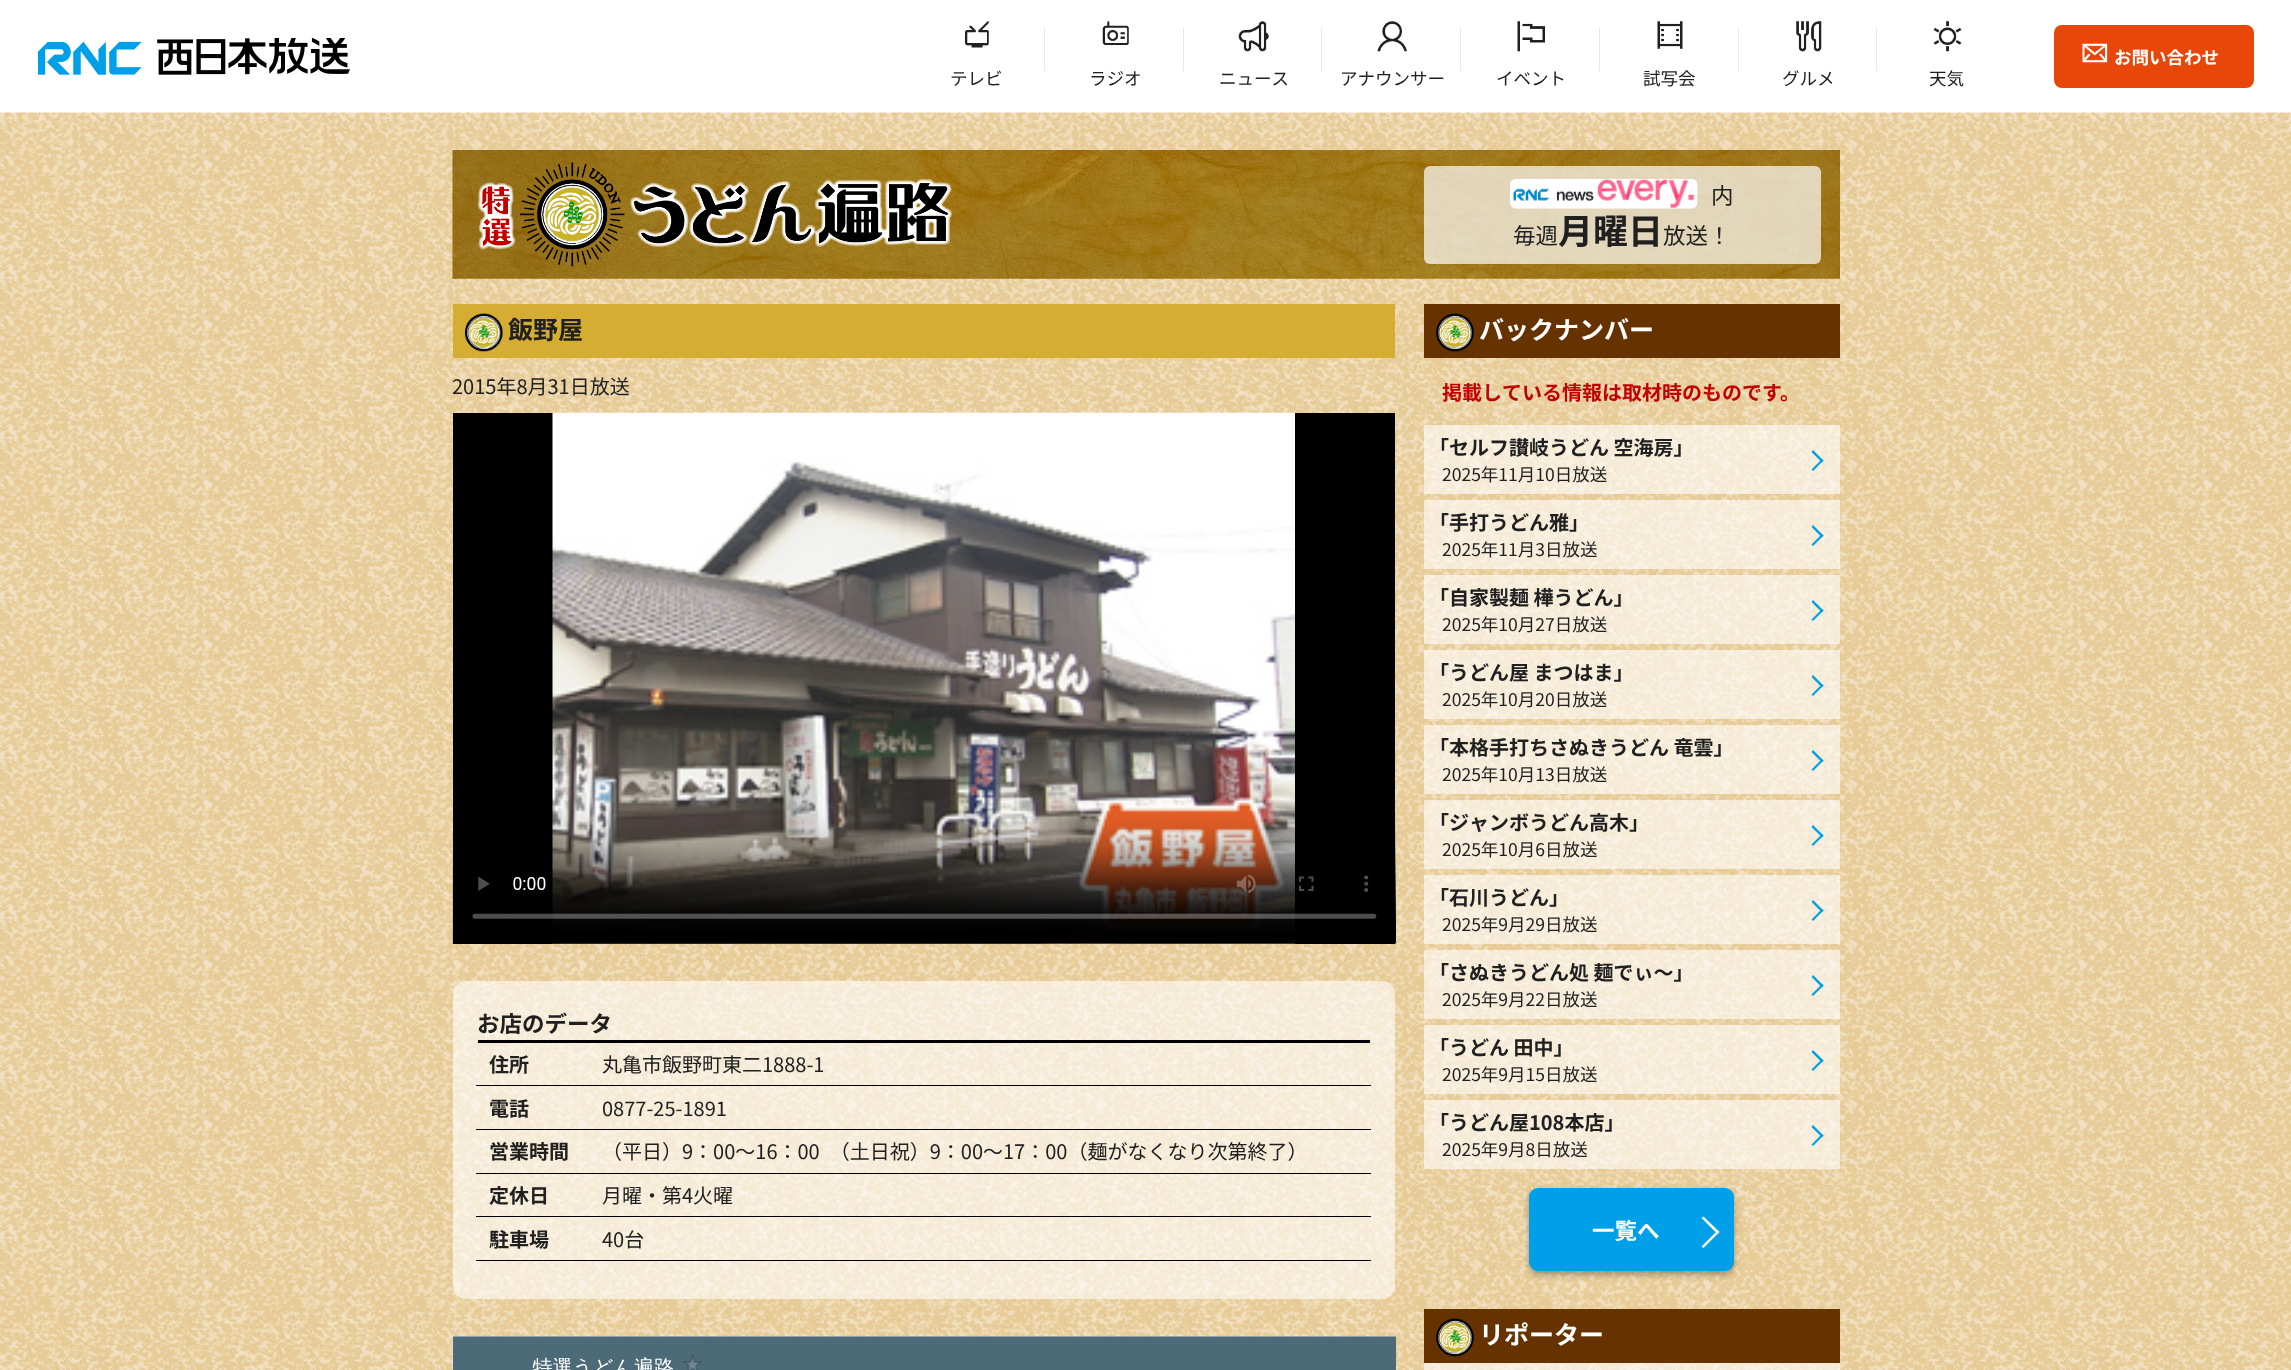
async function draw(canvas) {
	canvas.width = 2291;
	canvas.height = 1370;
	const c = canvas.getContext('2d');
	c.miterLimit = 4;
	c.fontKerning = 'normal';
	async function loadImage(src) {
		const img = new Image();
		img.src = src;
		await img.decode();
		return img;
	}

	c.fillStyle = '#fff';
	c.fillRect(0, 0, 2291, 1370);
	c.drawImage(await loadImage('img1.png'), 38, 38, 312, 37);
	c.fillStyle = '#e94709';
	c.beginPath();
	c.roundRect(2054, 25, 200, 63, 8);
	c.fill();
	c.drawImage(await loadImage('img2.png'), 2082, 43, 26, 20);
	c.font = 'bold 17.5px Noto Sans JP';
	c.fillStyle = '#fff';
	c.fillText('お問い合わせ', 2114, 64);
	c.fillStyle = '#e8e8e8';
	c.fillRect(1044, 28, 1, 43);
	c.drawImage(await loadImage('img3.png'), 965, 21, 24, 27);
	c.font = '17.5px Noto Sans JP';
	c.fillStyle = '#202020';
	c.fillText('テレビ', 950, 85);
	c.fillStyle = '#e8e8e8';
	c.fillRect(1183, 28, 1, 43);
	c.drawImage(await loadImage('img4.png'), 1102, 21, 27, 24);
	c.fillStyle = '#202020';
	c.fillText('ラジオ', 1089, 85);
	c.fillStyle = '#e8e8e8';
	c.fillRect(1321, 28, 1, 43);
	c.drawImage(await loadImage('img5.png'), 1238, 21, 31, 31);
	c.fillStyle = '#202020';
	c.fillText('ニュース', 1219, 85);
	c.fillStyle = '#e8e8e8';
	c.fillRect(1460, 28, 1, 43);
	c.drawImage(await loadImage('img6.png'), 1377, 21, 30, 31);
	c.fillStyle = '#202020';
	c.fillText('アナウンサー', 1340, 85);
	c.fillStyle = '#e8e8e8';
	c.fillRect(1599, 28, 1, 43);
	c.drawImage(await loadImage('img7.png'), 1517, 21, 28, 31);
	c.fillStyle = '#202020';
	c.fillText('イベント', 1496, 85);
	c.fillStyle = '#e8e8e8';
	c.fillRect(1738, 28, 1, 43);
	c.drawImage(await loadImage('img8.png'), 1657, 21, 26, 28);
	c.fillStyle = '#202020';
	c.fillText('試写会', 1643, 85);
	c.fillStyle = '#e8e8e8';
	c.fillRect(1876, 28, 1, 43);
	c.drawImage(await loadImage('img9.png'), 1796, 21, 26, 31);
	c.fillStyle = '#202020';
	c.fillText('グルメ', 1782, 85);
	c.drawImage(await loadImage('img10.png'), 1933, 21, 29, 31);
	c.fillText('天気', 1929, 85);
	c.drawImage(await loadImage('img11.png'), 0, 112, 2291, 1258);
	c.drawImage(await loadImage('img12.png'), 452, 150, 1388, 129);
	c.drawImage(await loadImage('img13.png'), 477, 162, 476, 105);
	c.fillStyle = '#ffffffb3';
	c.beginPath();
	c.roundRect(1424, 166, 397, 98, 6);
	c.fill();
	c.drawImage(await loadImage('img14.png'), 1510, 178, 188, 31);
	c.font = '22.5px Noto Sans JP';
	c.fillStyle = '#202020';
	c.fillText('内', 1711, 204);
	c.fillText('毎週', 1513, 244);
	c.font = 'bold 35px Noto Sans JP';
	c.fillText('月曜日', 1558, 244);
	c.font = '22.5px Noto Sans JP';
	c.fillText('放送！', 1663, 244);
	c.fillStyle = '#d5ad33';
	c.fillRect(453, 304, 942, 54);
	c.drawImage(await loadImage('img15.png'), 465, 313, 38, 39);
	c.font = 'bold 25px Noto Sans JP';
	c.fillStyle = '#202020';
	c.fillText('飯野屋', 508, 339);
	c.font = '20px Noto Sans JP';
	c.fillText('2015年8月31日放送', 452, 394);
	c.fillStyle = '#000';
	c.fillRect(453, 413, 942, 531);
	c.drawImage(await loadImage('img16.png'), 452, 412, 944, 532);
	c.fillStyle = '#ffffff99';
	c.beginPath();
	c.roundRect(453, 981, 942, 318, 13);
	c.fill();
	c.fillStyle = '#000';
	c.fillRect(478, 1040, 892, 3);
	c.font = 'bold 22.5px Noto Sans JP';
	c.fillStyle = '#202020';
	c.fillText('お店のデータ', 477, 1032);
	c.font = 'bold 20px Noto Sans JP';
	c.fillText('住所', 489, 1072);
	c.fillStyle = '#000';
	c.fillRect(476, 1085, 895, 1);
	c.font = '20px Noto Sans JP';
	c.fillStyle = '#202020';
	c.fillText('丸亀市飯野町東二1888-1', 602, 1072);
	c.font = 'bold 20px Noto Sans JP';
	c.fillText('電話', 489, 1116);
	c.fillStyle = '#000';
	c.fillRect(476, 1129, 895, 1);
	c.font = '20px Noto Sans JP';
	c.fillStyle = '#202020';
	c.fillText('0877-25-1891', 602, 1116);
	c.font = 'bold 20px Noto Sans JP';
	c.fillText('営業時間', 489, 1159);
	c.fillStyle = '#000';
	c.fillRect(476, 1173, 895, 1);
	c.font = '20px Noto Sans JP';
	c.fillStyle = '#202020';
	c.fillText('（平日）9：00～16：00　（土日祝）9：00～17：00（麺がなくなり次第終了）', 602, 1159);
	c.font = 'bold 20px Noto Sans JP';
	c.fillText('定休日', 489, 1203);
	c.fillStyle = '#000';
	c.fillRect(476, 1216, 895, 1);
	c.font = '20px Noto Sans JP';
	c.fillStyle = '#202020';
	c.fillText('月曜・第4火曜', 602, 1203);
	c.font = 'bold 20px Noto Sans JP';
	c.fillText('駐車場', 489, 1247);
	c.fillStyle = '#000';
	c.fillRect(476, 1260, 895, 1);
	c.font = '20px Noto Sans JP';
	c.fillStyle = '#202020';
	c.fillText('40台', 602, 1247);
	c.drawImage(await loadImage('img17.png'), 452, 1336, 945, 34);
	c.fillStyle = '#630';
	c.fillRect(1424, 304, 416, 54);
	c.drawImage(await loadImage('img18.png'), 1436, 313, 38, 39);
	c.font = 'bold 25px Noto Sans JP';
	c.fillStyle = '#fff';
	c.fillText('バックナンバー', 1479, 339);
	c.font = 'bold 20px Noto Sans JP';
	c.fillStyle = '#c20000';
	c.fillText('掲載している情報は取材時のものです。', 1442, 400);
	c.fillStyle = '#ffffff99';
	c.fillRect(1424, 425, 416, 69);
	c.fillStyle = '#202020';
	c.fillText('「セルフ讃岐うどん 空海房」', 1429, 455);
	c.fillStyle = '#00a0e9';
	c.beginPath();
	c.moveTo(1813, 450);
	c.lineTo(1823.5, 460.5);
	c.lineTo(1822, 462.5);
	c.lineTo(1811.5, 452);
	c.closePath();
	c.fill();
	c.beginPath();
	c.moveTo(1822, 459);
	c.lineTo(1823.5, 460.5);
	c.lineTo(1813, 471);
	c.lineTo(1811.5, 469.5);
	c.closePath();
	c.fill();
	c.font = '17.5px Noto Sans JP';
	c.fillStyle = '#202020';
	c.fillText('2025年11月10日放送', 1442, 481);
	c.fillStyle = '#ffffff99';
	c.fillRect(1424, 500, 416, 69);
	c.font = 'bold 20px Noto Sans JP';
	c.fillStyle = '#202020';
	c.fillText('「手打うどん雅」', 1429, 530);
	c.fillStyle = '#00a0e9';
	c.beginPath();
	c.moveTo(1813, 525);
	c.lineTo(1823.5, 535.5);
	c.lineTo(1822, 537.5);
	c.lineTo(1811.5, 527);
	c.closePath();
	c.fill();
	c.beginPath();
	c.moveTo(1822, 534);
	c.lineTo(1823.5, 535.5);
	c.lineTo(1813, 546);
	c.lineTo(1811.5, 544.5);
	c.closePath();
	c.fill();
	c.font = '17.5px Noto Sans JP';
	c.fillStyle = '#202020';
	c.fillText('2025年11月3日放送', 1442, 556);
	c.fillStyle = '#ffffff99';
	c.fillRect(1424, 575, 416, 69);
	c.font = 'bold 20px Noto Sans JP';
	c.fillStyle = '#202020';
	c.fillText('「自家製麺 樺うどん」', 1429, 605);
	c.fillStyle = '#00a0e9';
	c.beginPath();
	c.moveTo(1813, 600);
	c.lineTo(1823.5, 610.5);
	c.lineTo(1822, 612.5);
	c.lineTo(1811.5, 602);
	c.closePath();
	c.fill();
	c.beginPath();
	c.moveTo(1822, 609);
	c.lineTo(1823.5, 610.5);
	c.lineTo(1813, 621);
	c.lineTo(1811.5, 619.5);
	c.closePath();
	c.fill();
	c.font = '17.5px Noto Sans JP';
	c.fillStyle = '#202020';
	c.fillText('2025年10月27日放送', 1442, 631);
	c.fillStyle = '#ffffff99';
	c.fillRect(1424, 650, 416, 69);
	c.font = 'bold 20px Noto Sans JP';
	c.fillStyle = '#202020';
	c.fillText('「うどん屋 まつはま」', 1429, 680);
	c.fillStyle = '#00a0e9';
	c.beginPath();
	c.moveTo(1813, 675);
	c.lineTo(1823.5, 685.5);
	c.lineTo(1822, 687.5);
	c.lineTo(1811.5, 677);
	c.closePath();
	c.fill();
	c.beginPath();
	c.moveTo(1822, 684);
	c.lineTo(1823.5, 685.5);
	c.lineTo(1813, 696);
	c.lineTo(1811.5, 694.5);
	c.closePath();
	c.fill();
	c.font = '17.5px Noto Sans JP';
	c.fillStyle = '#202020';
	c.fillText('2025年10月20日放送', 1442, 706);
	c.fillStyle = '#ffffff99';
	c.fillRect(1424, 725, 416, 69);
	c.font = 'bold 20px Noto Sans JP';
	c.fillStyle = '#202020';
	c.fillText('「本格手打ちさぬきうどん 竜雲」', 1429, 755);
	c.fillStyle = '#00a0e9';
	c.beginPath();
	c.moveTo(1813, 750);
	c.lineTo(1823.5, 760.5);
	c.lineTo(1822, 762.5);
	c.lineTo(1811.5, 752);
	c.closePath();
	c.fill();
	c.beginPath();
	c.moveTo(1822, 759);
	c.lineTo(1823.5, 760.5);
	c.lineTo(1813, 771);
	c.lineTo(1811.5, 769.5);
	c.closePath();
	c.fill();
	c.font = '17.5px Noto Sans JP';
	c.fillStyle = '#202020';
	c.fillText('2025年10月13日放送', 1442, 781);
	c.fillStyle = '#ffffff99';
	c.fillRect(1424, 800, 416, 69);
	c.font = 'bold 20px Noto Sans JP';
	c.fillStyle = '#202020';
	c.fillText('「ジャンボうどん高木」', 1429, 830);
	c.fillStyle = '#00a0e9';
	c.beginPath();
	c.moveTo(1813, 825);
	c.lineTo(1823.5, 835.5);
	c.lineTo(1822, 837.5);
	c.lineTo(1811.5, 827);
	c.closePath();
	c.fill();
	c.beginPath();
	c.moveTo(1822, 834);
	c.lineTo(1823.5, 835.5);
	c.lineTo(1813, 846);
	c.lineTo(1811.5, 844.5);
	c.closePath();
	c.fill();
	c.font = '17.5px Noto Sans JP';
	c.fillStyle = '#202020';
	c.fillText('2025年10月6日放送', 1442, 856);
	c.fillStyle = '#ffffff99';
	c.fillRect(1424, 875, 416, 69);
	c.font = 'bold 20px Noto Sans JP';
	c.fillStyle = '#202020';
	c.fillText('「石川うどん」', 1429, 905);
	c.fillStyle = '#00a0e9';
	c.beginPath();
	c.moveTo(1813, 900);
	c.lineTo(1823.5, 910.5);
	c.lineTo(1822, 912.5);
	c.lineTo(1811.5, 902);
	c.closePath();
	c.fill();
	c.beginPath();
	c.moveTo(1822, 909);
	c.lineTo(1823.5, 910.5);
	c.lineTo(1813, 921);
	c.lineTo(1811.5, 919.5);
	c.closePath();
	c.fill();
	c.font = '17.5px Noto Sans JP';
	c.fillStyle = '#202020';
	c.fillText('2025年9月29日放送', 1442, 931);
	c.fillStyle = '#ffffff99';
	c.fillRect(1424, 950, 416, 69);
	c.font = 'bold 20px Noto Sans JP';
	c.fillStyle = '#202020';
	c.fillText('「さぬきうどん処 麺でぃ〜」', 1429, 980);
	c.fillStyle = '#00a0e9';
	c.beginPath();
	c.moveTo(1813, 975);
	c.lineTo(1823.5, 985.5);
	c.lineTo(1822, 987.5);
	c.lineTo(1811.5, 977);
	c.closePath();
	c.fill();
	c.beginPath();
	c.moveTo(1822, 984);
	c.lineTo(1823.5, 985.5);
	c.lineTo(1813, 996);
	c.lineTo(1811.5, 994.5);
	c.closePath();
	c.fill();
	c.font = '17.5px Noto Sans JP';
	c.fillStyle = '#202020';
	c.fillText('2025年9月22日放送', 1442, 1006);
	c.fillStyle = '#ffffff99';
	c.fillRect(1424, 1025, 416, 69);
	c.font = 'bold 20px Noto Sans JP';
	c.fillStyle = '#202020';
	c.fillText('「うどん 田中」', 1429, 1055);
	c.fillStyle = '#00a0e9';
	c.beginPath();
	c.moveTo(1813, 1050);
	c.lineTo(1823.5, 1060.5);
	c.lineTo(1822, 1062.5);
	c.lineTo(1811.5, 1052);
	c.closePath();
	c.fill();
	c.beginPath();
	c.moveTo(1822, 1059);
	c.lineTo(1823.5, 1060.5);
	c.lineTo(1813, 1071);
	c.lineTo(1811.5, 1069.5);
	c.closePath();
	c.fill();
	c.font = '17.5px Noto Sans JP';
	c.fillStyle = '#202020';
	c.fillText('2025年9月15日放送', 1442, 1081);
	c.fillStyle = '#ffffff99';
	c.fillRect(1424, 1100, 416, 69);
	c.font = 'bold 20px Noto Sans JP';
	c.fillStyle = '#202020';
	c.fillText('「うどん屋108本店」', 1429, 1130);
	c.fillStyle = '#00a0e9';
	c.beginPath();
	c.moveTo(1813, 1125);
	c.lineTo(1823.5, 1135.5);
	c.lineTo(1822, 1137.5);
	c.lineTo(1811.5, 1127);
	c.closePath();
	c.fill();
	c.beginPath();
	c.moveTo(1822, 1134);
	c.lineTo(1823.5, 1135.5);
	c.lineTo(1813, 1146);
	c.lineTo(1811.5, 1144.5);
	c.closePath();
	c.fill();
	c.font = '17.5px Noto Sans JP';
	c.fillStyle = '#202020';
	c.fillText('2025年9月8日放送', 1442, 1156);
	c.fillStyle = '#0000004d';
	c.filter = 'blur(3px)';
	c.beginPath();
	c.roundRect(1529, 1191, 205, 84, 9);
	c.fill();
	c.filter = 'none';
	c.fillStyle = '#00a0e9';
	c.beginPath();
	c.roundRect(1529, 1188, 205, 83, 9);
	c.fill();
	c.font = 'bold 22.5px Noto Sans JP';
	c.fillStyle = '#fff';
	c.fillText('一覧へ', 1592, 1239);
	c.beginPath();
	c.moveTo(1703.5, 1216.5);
	c.lineTo(1719.5, 1232);
	c.lineTo(1717.5, 1234);
	c.lineTo(1701.5, 1218);
	c.closePath();
	c.fill();
	c.beginPath();
	c.moveTo(1717.5, 1230.5);
	c.lineTo(1719.5, 1232);
	c.lineTo(1703.5, 1248);
	c.lineTo(1701.5, 1246.5);
	c.closePath();
	c.fill();
	c.fillStyle = '#ffffff99';
	c.fillRect(1424, 1363, 416, 7);
	c.fillStyle = '#630';
	c.fillRect(1424, 1309, 416, 54);
	c.drawImage(await loadImage('img18.png'), 1436, 1318, 38, 39);
	c.font = 'bold 25px Noto Sans JP';
	c.fillStyle = '#fff';
	c.fillText('リポーター', 1479, 1344);
}

draw(document.querySelector('canvas'));
